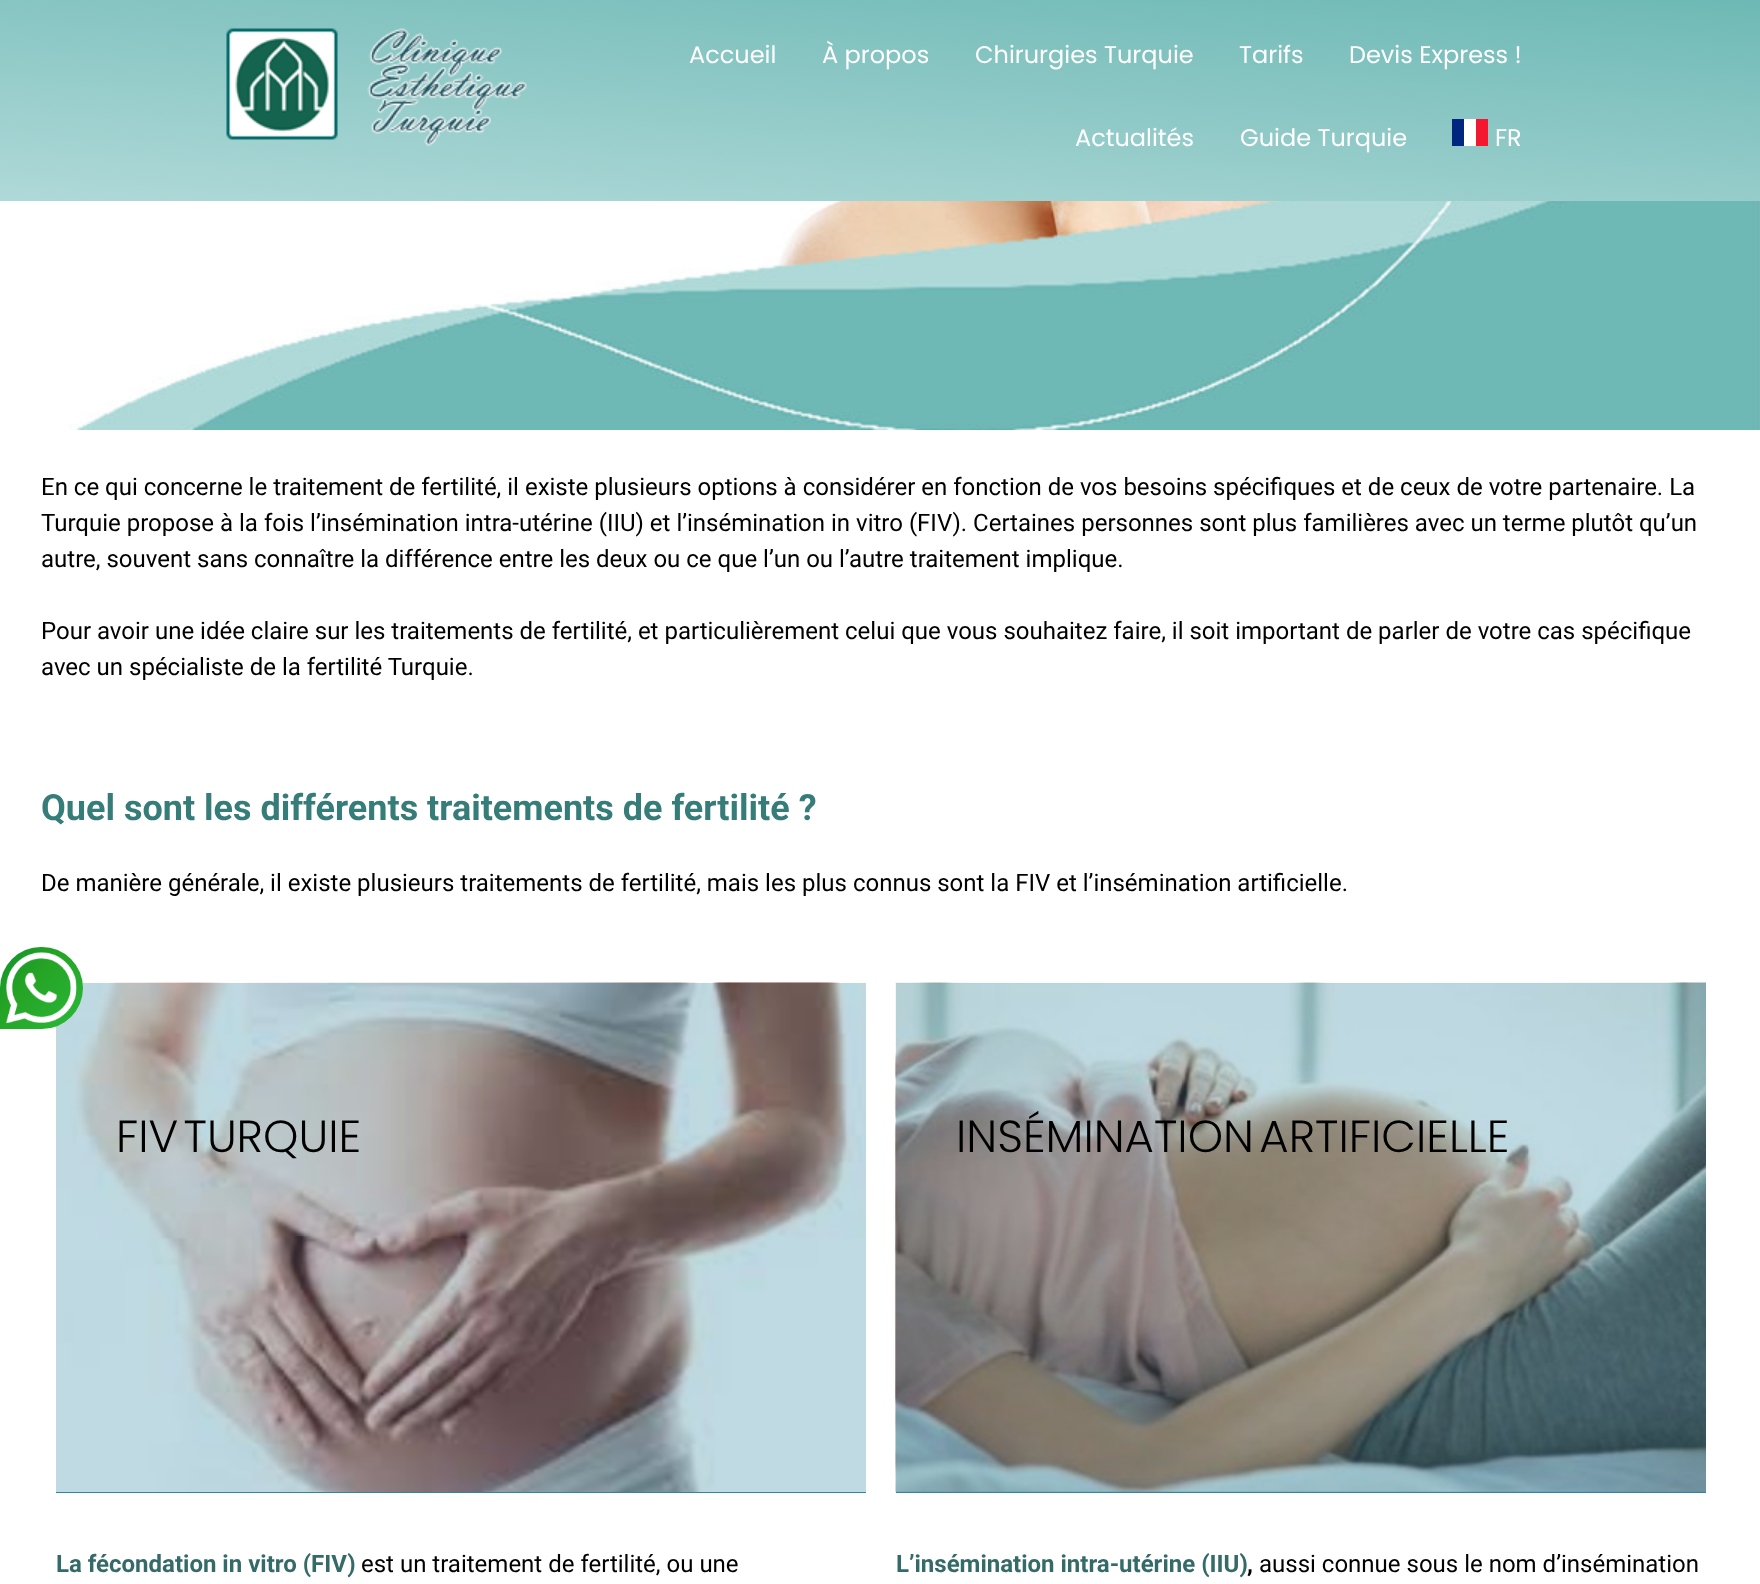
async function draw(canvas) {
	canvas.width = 1760;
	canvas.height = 1584;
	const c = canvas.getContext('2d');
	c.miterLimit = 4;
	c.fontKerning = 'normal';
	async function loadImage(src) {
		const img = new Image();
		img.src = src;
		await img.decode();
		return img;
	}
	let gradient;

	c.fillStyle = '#fff';
	c.fillRect(0, 0, 1760, 1584);
	gradient = c.createLinearGradient(869, 262, 892, -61);
	gradient.addColorStop(0, '#afd9d8');
	gradient.addColorStop(1, '#6eb9b5');
	c.fillStyle = gradient;
	c.fillRect(0, 0, 1760, 201);
	c.drawImage(await loadImage('img1.png'), 226, 28, 301, 118);
	c.font = '24px Poppins';
	c.fillStyle = '#fff';
	for (const [text, x, y] of [
		['Accueil', 689, 63],
		['À propos', 822, 63],
		['Chirurgies Turquie', 975, 63],
		['Tarifs', 1239, 63],
		['Devis Express !', 1349, 63],
		['Actualités', 1075, 146],
		['Guide Turquie', 1240, 146],
	]) {
		c.fillText(text, x, y);
	}
	for (const [x, y, w, h, color] of [
		[1452, 119, 12, 27, '#00267f'],
		[1464, 119, 12, 27, '#fff'],
		[1476, 119, 12, 27, '#f31830'],
	]) {
		c.fillStyle = color;
		c.fillRect(x, y, w, h);
	}
	c.fillStyle = '#fff';
	c.fillText('FR', 1495, 146);
	c.drawImage(await loadImage('img2.png'), 69, 201, 1691, 229);
	c.font = '24px Roboto';
	c.fillStyle = '#000';
	for (const [text, x, y] of [
		['En ce qui concerne le traitement de fertilité, il existe plusieurs options à considérer en fonction de vos besoins spécifiques et de ceux de votre partenaire. La', 41, 495],
		['Turquie propose à la fois l’insémination intra-utérine (IIU) et l’insémination in vitro (FIV). Certaines personnes sont plus familières avec un terme plutôt qu’un', 41, 531],
		['autre, souvent sans connaître la différence entre les deux ou ce que l’un ou l’autre traitement implique.', 41, 567],
		['Pour avoir une idée claire sur les traitements de fertilité, et particulièrement celui que vous souhaitez faire, il soit important de parler de votre cas spécifique', 41, 639],
		['avec un spécialiste de la fertilité Turquie.', 41, 675],
	]) {
		c.fillText(text, x, y);
	}
	c.font = 'bold 36px Roboto';
	c.fillStyle = '#367d79';
	c.fillText('Quel sont les différents traitements de fertilité ?', 41, 820);
	c.font = '24px Roboto';
	c.fillStyle = '#000';
	c.fillText('De manière générale, il existe plusieurs traitements de fertilité, mais les plus connus sont la FIV et l’insémination artificielle.', 41, 891);
	c.fillStyle = '#3085a3';
	c.fillRect(56, 983, 810, 510);
	c.drawImage(await loadImage('img3.png'), 56, 982, 810, 510);
	c.wordSpacing = '-7px';
	c.font = '300 45px Poppins';
	c.fillStyle = '#000';
	c.fillText('FIV TURQUIE', 116, 1152);
	c.fillStyle = '#3085a3';
	c.fillRect(896, 983, 810, 510);
	c.drawImage(await loadImage('img4.png'), 895, 982, 811, 510);
	c.fillStyle = '#000';
	c.fillText('INSÉMINATION ARTIFICIELLE', 956, 1152);
	c.wordSpacing = '0px';
	c.font = 'bold 24px Roboto';
	c.fillStyle = '#346a68';
	c.fillText('La fécondation in vitro (FIV)', 56, 1572);
	c.font = '24px Roboto';
	c.fillStyle = '#000';
	c.fillText('est un traitement de fertilité, ou une', 361, 1572);
	c.font = 'bold 24px Roboto';
	c.fillStyle = '#346a68';
	c.fillText('L’insémination intra-utérine (IIU)', 896, 1572);
	c.fillStyle = '#000';
	c.fillText(',', 1247, 1572);
	c.font = '24px Roboto';
	c.fillText('aussi connue sous le nom d’insémination', 1259, 1572);
	gradient = c.createLinearGradient(0, 947, 83, 1029);
	gradient.addColorStop(0, '#0f912c');
	gradient.addColorStop(0.37, '#25a325');
	gradient.addColorStop(1, '#2ab939');
	c.fillStyle = gradient;
	c.beginPath();
	c.roundRect(0, 947, 83, 82, [41, 41, 41, 0]);
	c.fill();
	c.drawImage(await loadImage('img6.png'), 24, 972, 33, 31);
	c.drawImage(await loadImage('img5.png'), 6, 952, 71, 71);
}

draw(document.querySelector('canvas'));
